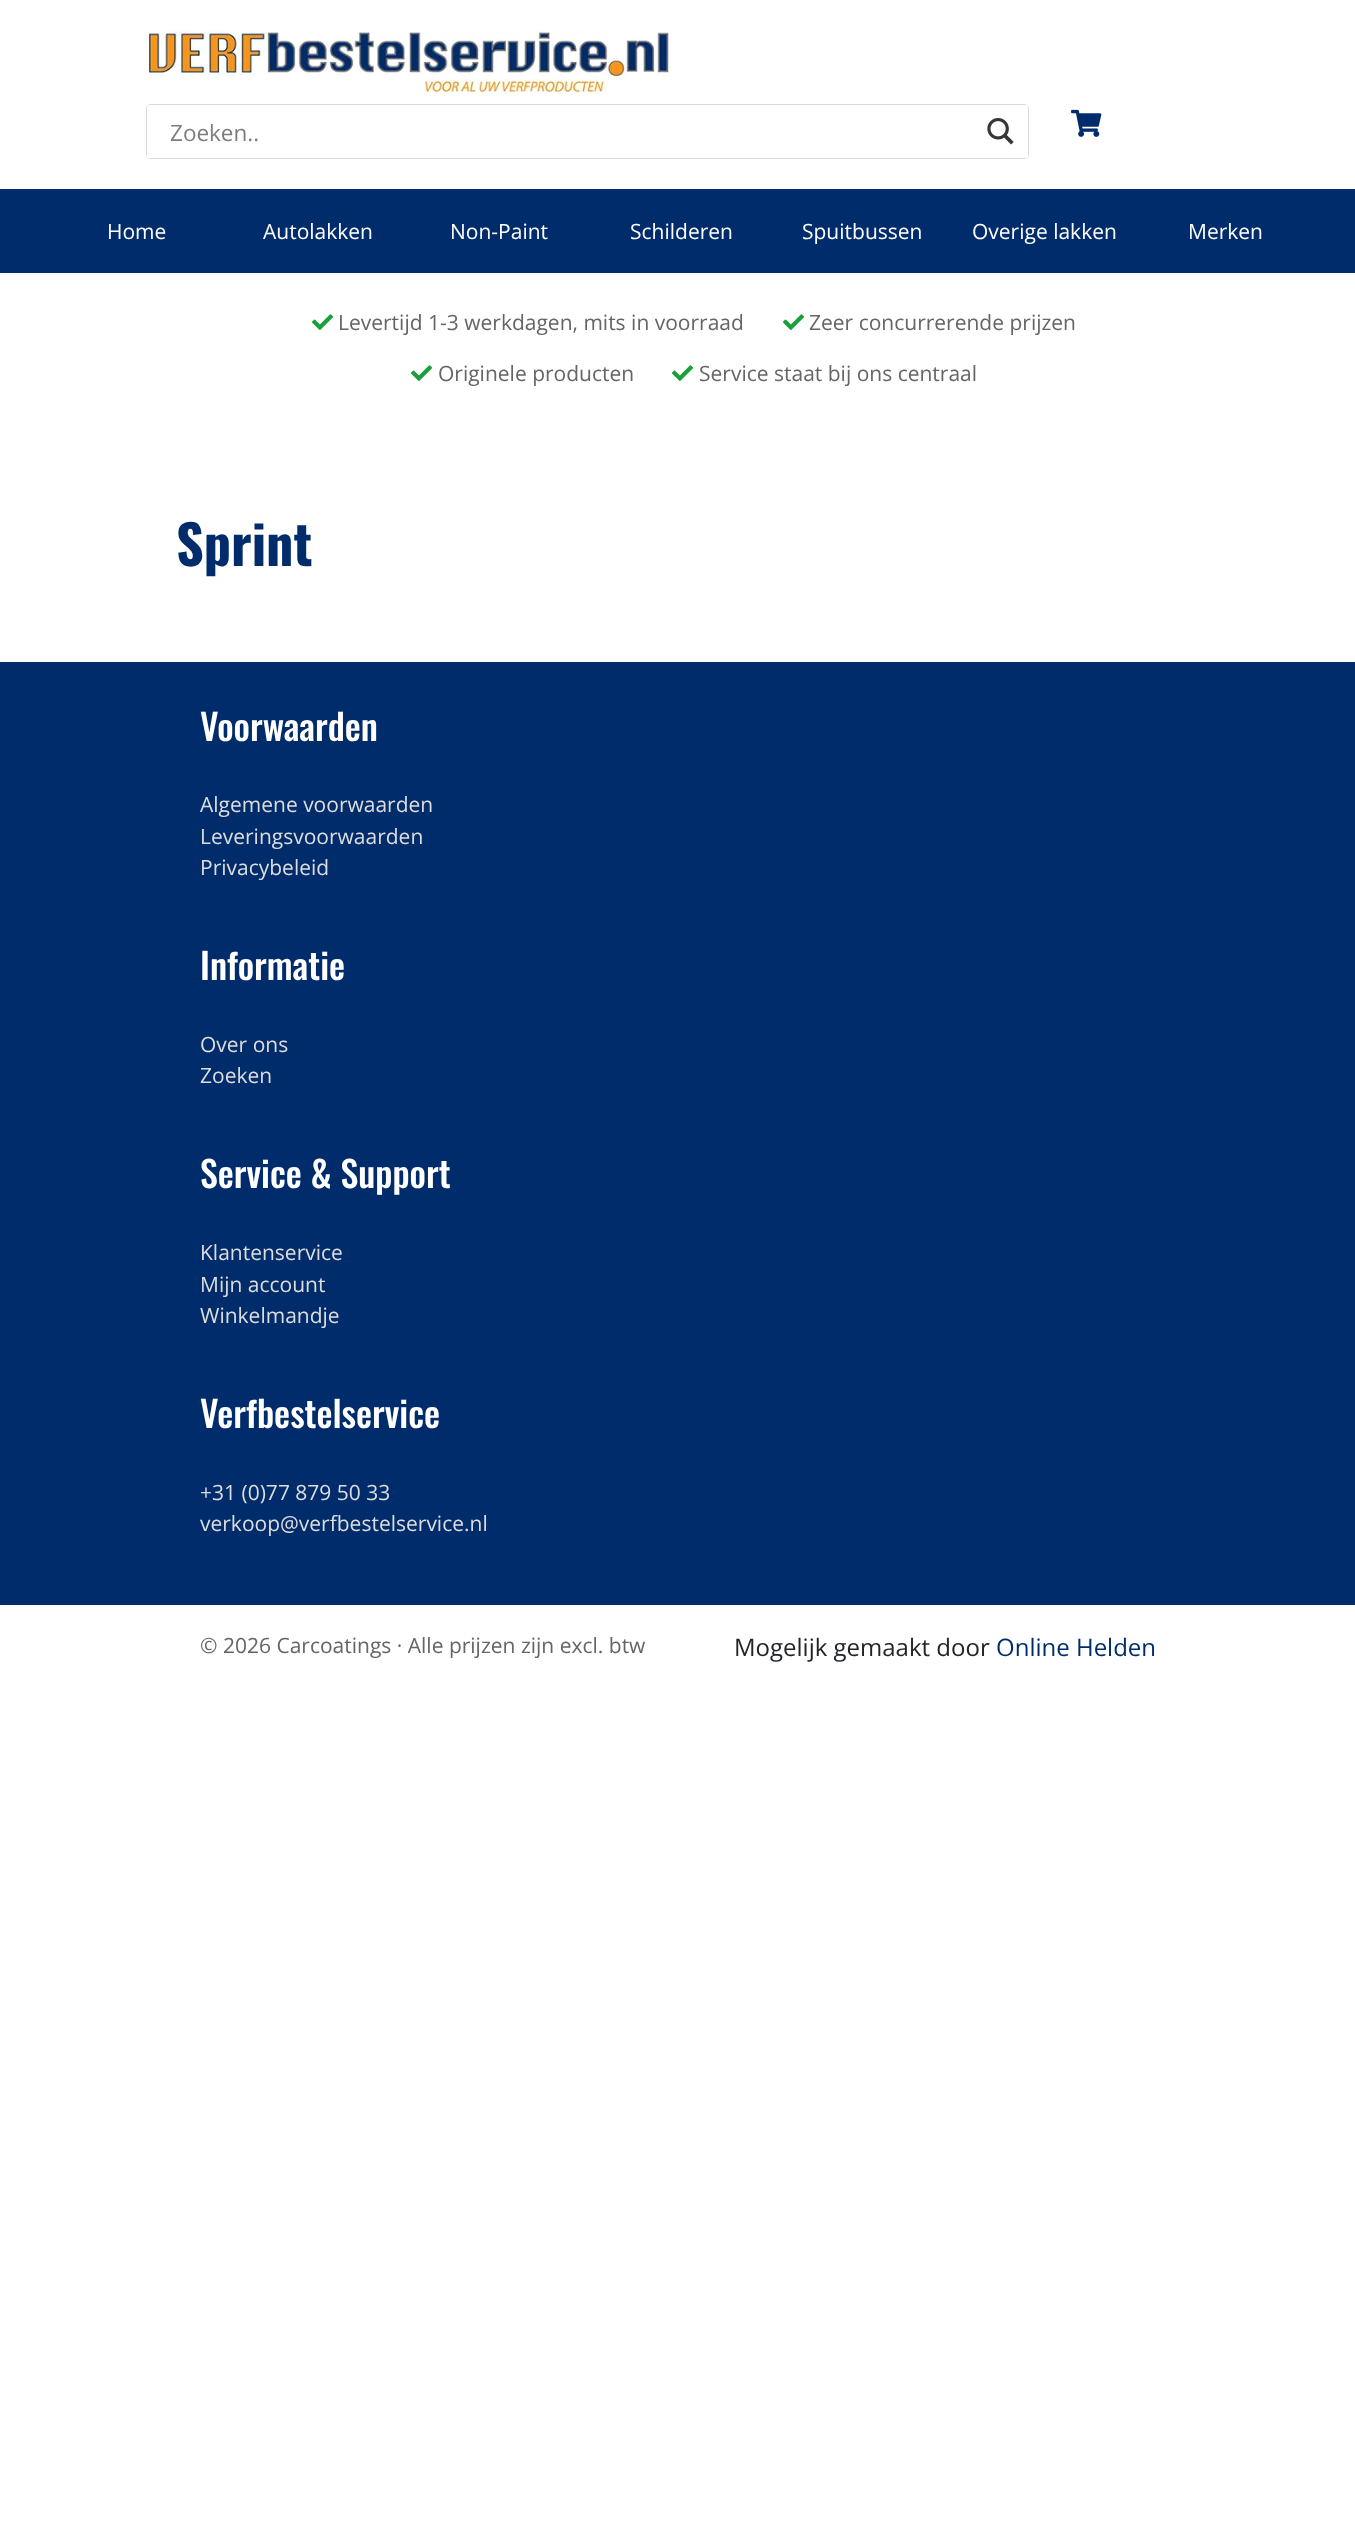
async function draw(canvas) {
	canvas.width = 1355;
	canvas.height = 2524;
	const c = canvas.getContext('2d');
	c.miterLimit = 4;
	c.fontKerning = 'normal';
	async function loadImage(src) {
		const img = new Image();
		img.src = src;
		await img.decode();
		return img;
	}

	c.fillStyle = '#fff';
	c.fillRect(0, 0, 1355, 2524);
	c.drawImage(await loadImage('img1.png'), 145, 30, 526, 64);
	c.beginPath();
	c.roundRect(147, 105, 881, 53, 4);
	c.strokeStyle = '#dadada';
	c.lineWidth = 2;
	c.stroke();
	c.beginPath();
	c.roundRect(147, 105, 881, 53, 3);
	c.fill();
	c.font = '22.5px Open Sans';
	c.fillStyle = '#7d7d7d';
	c.fillText('Zoeken..', 170, 141);
	c.save();
	c.beginPath();
	c.rect(975, 105, 53, 53);
	c.clip();
	c.fillStyle = '#ffffffa3';
	c.beginPath();
	c.moveTo(974, 106);
	c.lineTo(974, 158);
	c.lineTo(826, 158);
	c.lineTo(826, 105);
	c.lineTo(1025, 105);
	c.bezierCurveTo(1027, 105, 1028, 106, 1028, 108);
	c.lineTo(1028, 155);
	c.bezierCurveTo(1028, 156, 1027, 157, 1026, 158);
	c.lineTo(1026, 106);
	c.closePath();
	c.fill();
	c.restore();
	c.drawImage(await loadImage('img2.png'), 987, 118, 27, 27);
	c.drawImage(await loadImage('img3.png'), 1071, 109, 31, 28);
	c.fillStyle = '#002c6b';
	c.fillRect(0, 189, 1355, 84);
	c.font = '21px Open Sans';
	c.fillStyle = '#fff';
	for (const [text, x, y] of [
		['Home', 107, 239],
		['Autolakken', 263, 239],
		['Non-Paint', 450, 239],
		['Schilderen', 630, 239],
		['Spuitbussen', 802, 239],
		['Overige lakken', 972, 239],
		['Merken', 1188, 239],
	]) {
		c.fillText(text, x, y);
	}
	c.drawImage(await loadImage('img4.png'), 312, 314, 21, 16);
	c.fillStyle = '#656564';
	c.fillText('Levertijd 1-3 werkdagen, mits in voorraad', 338, 330);
	c.drawImage(await loadImage('img4.png'), 783, 314, 21, 16);
	c.fillText('Zeer concurrerende prijzen', 809, 330);
	c.drawImage(await loadImage('img4.png'), 411, 365, 21, 16);
	c.fillText('Originele producten', 438, 381);
	c.drawImage(await loadImage('img4.png'), 672, 365, 21, 16);
	c.fillText('Service staat bij ons centraal', 699, 381);
	c.font = 'bold 54px Oswald';
	c.fillStyle = '#002c6b';
	c.fillText('Sprint', 176, 566);
	c.fillRect(0, 662, 1355, 943);
	c.font = '500 36px Oswald';
	c.fillStyle = '#fff';
	c.fillText('Voorwaarden', 200, 741);
	c.font = '21px Open Sans';
	c.fillStyle = '#ddd';
	for (const [text, x, y] of [
		['Algemene voorwaarden', 200, 812],
		['Leveringsvoorwaarden', 200, 844],
		['Privacybeleid', 200, 875],
	]) {
		c.fillText(text, x, y);
	}
	c.font = '500 36px Oswald';
	c.fillStyle = '#fff';
	c.fillText('Informatie', 200, 980);
	c.font = '21px Open Sans';
	c.fillStyle = '#ddd';
	c.fillText('Over ons', 200, 1052);
	c.fillText('Zoeken', 200, 1083);
	c.font = '500 36px Oswald';
	c.fillStyle = '#fff';
	c.fillText('Service & Support', 200, 1188);
	c.font = '21px Open Sans';
	c.fillStyle = '#ddd';
	for (const [text, x, y] of [
		['Klantenservice', 200, 1260],
		['Mijn account', 200, 1292],
		['Winkelmandje', 200, 1323],
	]) {
		c.fillText(text, x, y);
	}
	c.font = '500 36px Oswald';
	c.fillStyle = '#fff';
	c.fillText('Verfbestelservice', 200, 1428);
	c.font = '21px Open Sans';
	c.fillStyle = '#ddd';
	c.fillText('+31 (0)77 879 50 33', 200, 1500);
	c.fillText('verkoop@verfbestelservice.nl', 200, 1531);
	c.fillStyle = '#656564';
	c.fillText('© 2026 Carcoatings · Alle prijzen zijn excl. btw', 200, 1653);
	c.font = '24px Open Sans';
	c.fillStyle = '#212529';
	c.fillText('Mogelijk gemaakt door', 734, 1656);
	c.fillStyle = '#002c6b';
	c.fillText('Online Helden', 996, 1656);
}

draw(document.querySelector('canvas'));
